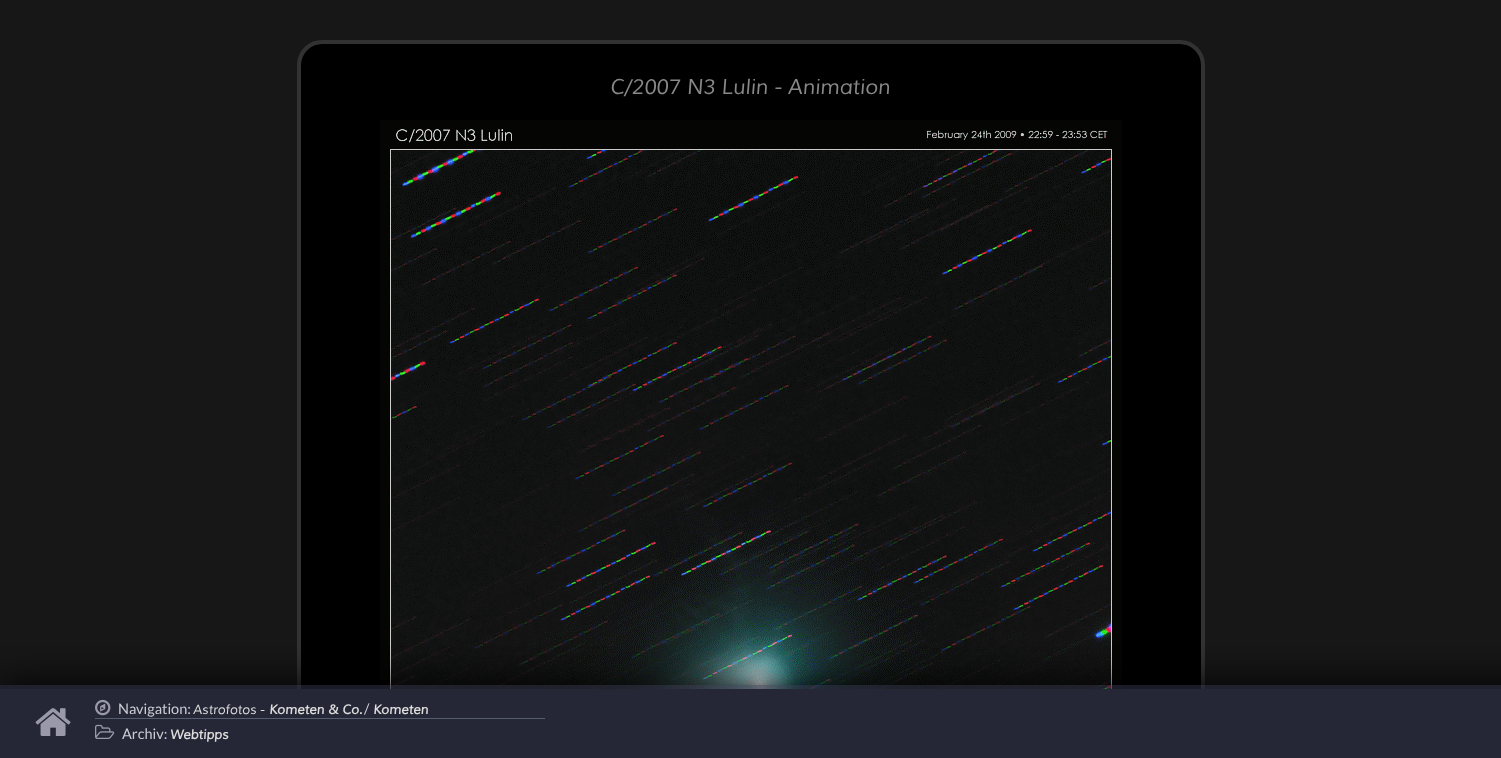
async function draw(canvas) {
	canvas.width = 1501;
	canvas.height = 758;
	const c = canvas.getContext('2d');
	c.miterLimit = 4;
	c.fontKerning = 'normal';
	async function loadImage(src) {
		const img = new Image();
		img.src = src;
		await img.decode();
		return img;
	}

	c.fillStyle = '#171717';
	c.fillRect(0, 0, 1501, 758);
	c.fillStyle = '#000';
	c.beginPath();
	c.roundRect(301, 44, 900, 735, 21);
	c.fill();
	c.beginPath();
	c.roundRect(299, 42, 904, 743, 23);
	c.strokeStyle = '#323232';
	c.lineWidth = 4;
	c.stroke();
	c.font = 'italic 21px Muli';
	c.fillStyle = '#888';
	c.fillText('C/2007 N3 Lulin - Animation', 610, 94);
	c.drawImage(await loadImage('img1.png'), 380, 120, 742, 569);
	c.save();
	c.beginPath();
	c.rect(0, 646, 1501, 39);
	c.clip();
	c.fillStyle = '#000';
	c.filter = 'blur(19px)';
	c.beginPath();
	c.rect(0, 685, 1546, 73);
	c.fill();
	c.filter = 'none';
	c.restore();
	c.fillStyle = '#252736';
	c.fillRect(0, 689, 1501, 69);
	c.fillStyle = '#252736b3';
	c.fillRect(0, 685, 1501, 4);
	c.drawImage(await loadImage('img2.png'), 35, 708, 36, 28);
	c.fillStyle = '#545d6e';
	c.fillRect(95, 718, 450, 1);
	c.drawImage(await loadImage('img3.png'), 95, 699, 16, 17);
	c.font = '14.5px Lato';
	c.fillStyle = '#ccccd4';
	c.fillText('Navigation:', 118, 714);
	c.font = 'italic 13px Muli';
	c.fillStyle = '#ddd';
	c.fillText('Astrofotos -', 193, 714);
	c.font = 'italic bold 13px Muli';
	c.fillText('Kometen & Co.', 269, 714);
	c.font = '14.5px Lato';
	c.fillStyle = '#ccccd4';
	c.fillText('/', 364, 714);
	c.font = 'italic bold 13px Muli';
	c.fillStyle = '#ddd';
	c.fillText('Kometen', 373, 714);
	c.drawImage(await loadImage('img4.png'), 95, 724, 20, 15);
	c.font = '14.5px Lato';
	c.fillStyle = '#ccccd4';
	c.fillText('Archiv:', 122, 739);
	c.font = 'italic bold 13px Muli';
	c.fillStyle = '#ddd';
	c.fillText('Webtipps', 170, 739);
}

draw(document.querySelector('canvas'));
